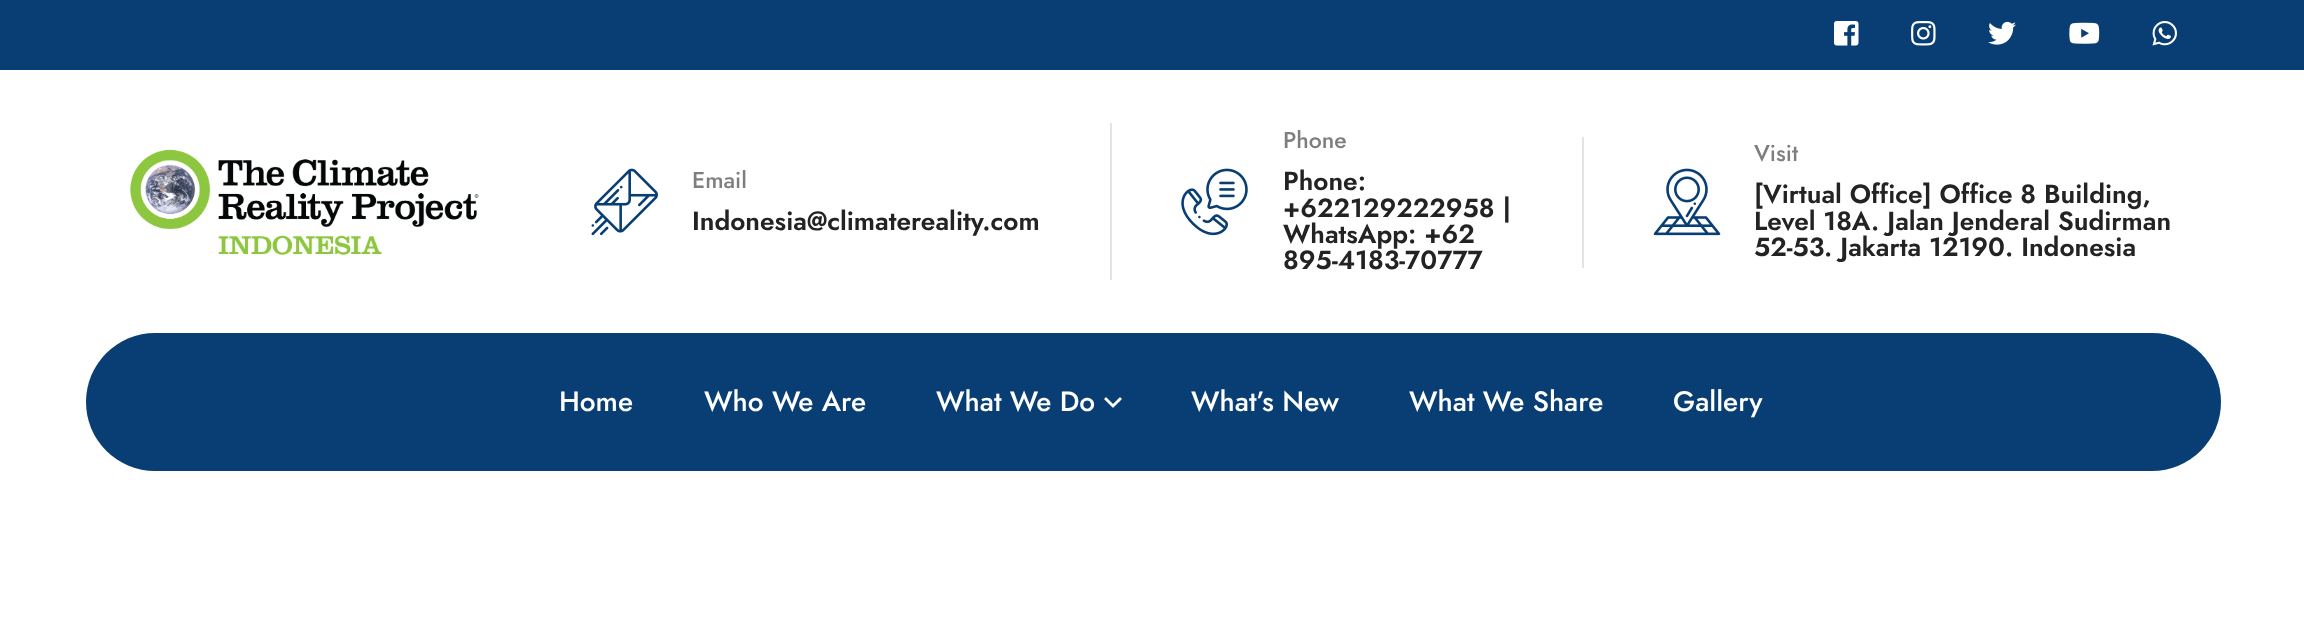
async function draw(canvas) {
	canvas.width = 2304;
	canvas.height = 633;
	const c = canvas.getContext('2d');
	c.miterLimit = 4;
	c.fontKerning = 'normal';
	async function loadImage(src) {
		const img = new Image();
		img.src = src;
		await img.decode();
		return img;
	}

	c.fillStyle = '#fff';
	c.fillRect(0, 0, 2304, 633);
	c.fillStyle = '#083e73';
	c.fillRect(0, 0, 2304, 70);
	c.drawImage(await loadImage('img1.png'), 1834, 21, 25, 25);
	c.drawImage(await loadImage('img2.png'), 1911, 21, 25, 25);
	c.drawImage(await loadImage('img3.png'), 1988, 21, 28, 24);
	c.drawImage(await loadImage('img4.png'), 2069, 22, 31, 22);
	c.drawImage(await loadImage('img5.png'), 2152, 21, 25, 25);
	c.drawImage(await loadImage('img6.png'), 130, 149, 349, 106);
	c.drawImage(await loadImage('img7.png'), 591, 168, 67, 68);
	c.font = '500 23px Jost';
	c.fillStyle = '#7e7e7e';
	c.fillText('Email', 692, 188);
	c.font = '600 26.25px Jost';
	c.fillStyle = '#242323';
	c.fillText('Indonesia@climatereality.com', 692, 230);
	c.fillStyle = '#e4e4e4';
	c.fillRect(1110, 123, 2, 157);
	c.drawImage(await loadImage('img8.png'), 1181, 168, 67, 68);
	c.font = '500 23px Jost';
	c.fillStyle = '#7e7e7e';
	c.fillText('Phone', 1283, 148);
	c.font = '600 26.25px Jost';
	c.fillStyle = '#242323';
	for (const [text, x, y] of [
		['Phone:', 1283, 190],
		['+622129222958 |', 1283, 217],
		['WhatsApp: +62', 1283, 243],
		['895-4183-70777', 1283, 269],
	]) {
		c.fillText(text, x, y);
	}
	c.fillStyle = '#e4e4e4';
	c.fillRect(1582, 137, 2, 131);
	c.drawImage(await loadImage('img9.png'), 1653, 168, 68, 68);
	c.font = '500 23px Jost';
	c.fillStyle = '#7e7e7e';
	c.fillText('Visit', 1754, 161);
	c.font = '600 26.25px Jost';
	c.fillStyle = '#242323';
	for (const [text, x, y] of [
		['[Virtual Office] Office 8 Building,', 1754, 203],
		['Level 18A. Jalan Jenderal Sudirman', 1754, 230],
		['52-53. Jakarta 12190. Indonesia', 1754, 256],
	]) {
		c.fillText(text, x, y);
	}
	c.fillStyle = '#083e73';
	c.beginPath();
	c.roundRect(86, 333, 2135, 138, 69);
	c.fill();
	c.font = '500 28px Jost';
	c.fillStyle = '#fff';
	for (const [text, x, y] of [
		['Home', 559, 411],
		['Who We Are', 704, 411],
		['What We Do', 936, 411],
	]) {
		c.fillText(text, x, y);
	}
	c.drawImage(await loadImage('img10.png'), 1104, 397, 18, 11);
	for (const [text, x, y] of [
		['What’s New', 1191, 411],
		['What We Share', 1409, 411],
		['Gallery', 1673, 411],
	]) {
		c.fillText(text, x, y);
	}
}

draw(document.querySelector('canvas'));
